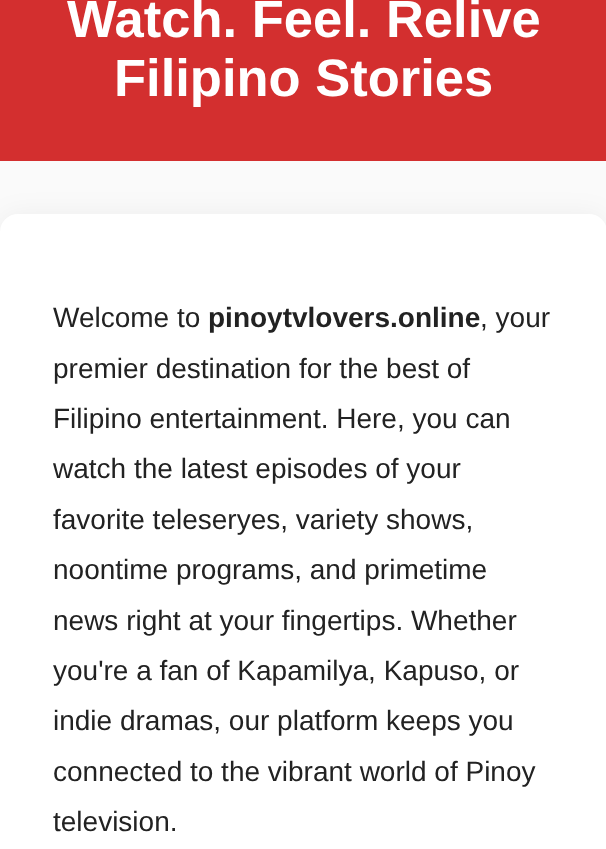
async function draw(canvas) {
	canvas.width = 606;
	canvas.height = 849;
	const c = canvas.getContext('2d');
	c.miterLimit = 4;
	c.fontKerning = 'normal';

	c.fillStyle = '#fafafa';
	c.fillRect(0, 0, 606, 849);
	c.fillStyle = '#d32f2f';
	c.fillRect(0, 0, 606, 161);
	c.font = 'bold 52.5px Liberation Sans';
	c.fillStyle = '#fff';
	c.fillText('Watch. Feel. Relive', 67, 37);
	c.fillText('Filipino Stories', 114, 96);
	c.fillStyle = '#0000000d';
	c.filter = 'blur(13px)';
	c.beginPath();
	c.roundRect(0, 214, 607, 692, 18);
	c.fill();
	c.filter = 'none';
	c.fillStyle = '#fff';
	c.beginPath();
	c.roundRect(0, 214, 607, 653, 18);
	c.fill();
	c.font = '28px Liberation Sans';
	c.fillStyle = '#222';
	c.fillText('Welcome to', 53, 327);
	c.font = 'bold 28px Liberation Sans';
	c.fillText('pinoytvlovers.online', 208, 327);
	c.font = '28px Liberation Sans';
	for (const [text, x, y] of [
		[', your', 480, 327],
		['premier destination for the best of', 53, 378],
		['Filipino entertainment. Here, you can', 53, 428],
		['watch the latest episodes of your', 53, 478],
		['favorite teleseryes, variety shows,', 53, 529],
		['noontime programs, and primetime', 53, 579],
		['news right at your fingertips. Whether', 53, 630],
		['you\'re a fan of Kapamilya, Kapuso, or', 53, 680],
		['indie dramas, our platform keeps you', 53, 730],
		['connected to the vibrant world of Pinoy', 53, 781],
		['television.', 53, 831],
	]) {
		c.fillText(text, x, y);
	}
}

draw(document.querySelector('canvas'));
